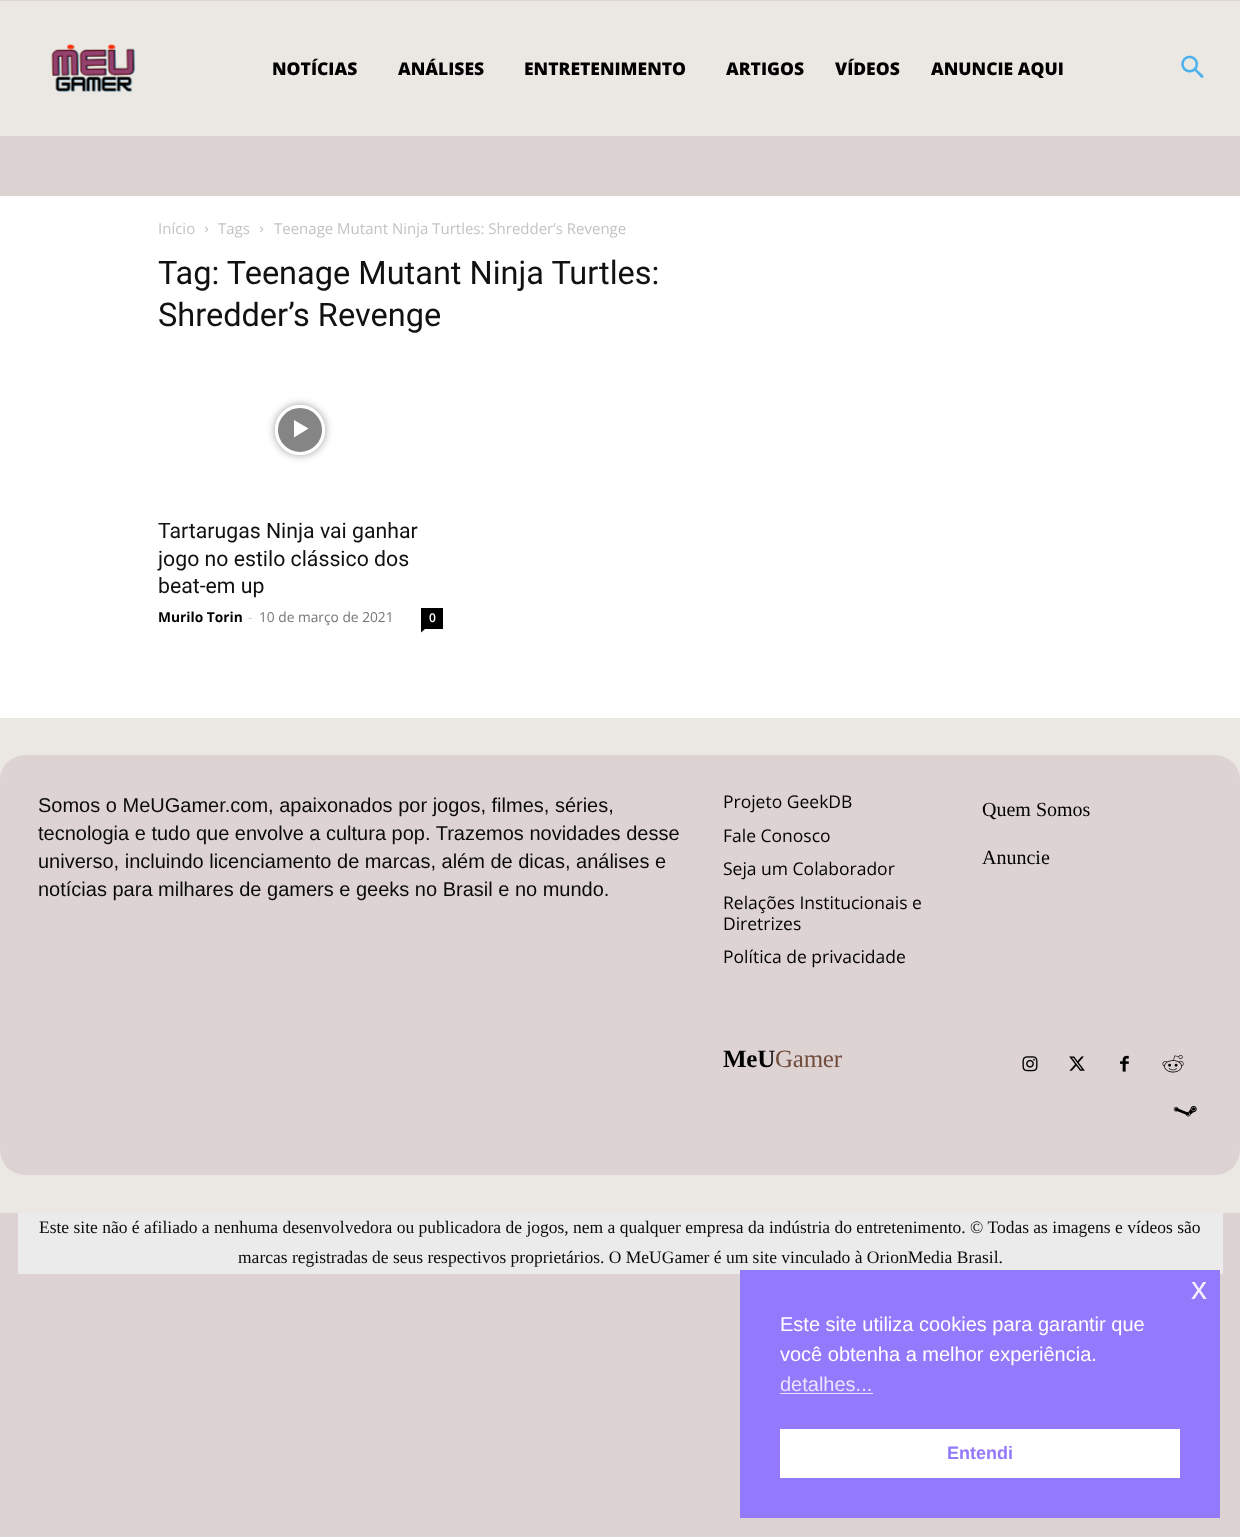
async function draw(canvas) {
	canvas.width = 1240;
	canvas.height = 1537;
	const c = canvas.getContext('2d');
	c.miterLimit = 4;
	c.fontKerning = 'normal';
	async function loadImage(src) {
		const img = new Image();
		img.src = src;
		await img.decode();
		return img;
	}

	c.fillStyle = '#ddd3d2';
	c.fillRect(0, 0, 1240, 1537);
	c.fillStyle = '#ebe7e2';
	c.fillRect(0, 1, 1240, 135);
	c.drawImage(await loadImage('img1.png'), 51, 44, 84, 48);
	c.font = '800 17.5px Open Sans';
	c.fillStyle = '#000';
	for (const [text, x, y] of [
		['NOTÍCIAS', 272, 75],
		['ANÁLISES', 398, 75],
		['ENTRETENIMENTO', 524, 75],
		['ARTIGOS', 726, 75],
		['VÍDEOS', 835, 75],
		['ANUNCIE AQUI', 931, 75],
	]) {
		c.fillText(text, x, y);
	}
	c.drawImage(await loadImage('img2.png'), 1181, 55, 23, 23);
	c.fillStyle = '#fff';
	c.fillRect(0, 196, 1240, 522);
	c.font = '15px Open Sans';
	c.fillStyle = '#c3c3c3';
	c.fillText('Início', 158, 234);
	c.drawImage(await loadImage('img3.png'), 205, 226, 4, 7);
	c.fillText('Tags', 218, 234);
	c.drawImage(await loadImage('img3.png'), 260, 226, 4, 7);
	c.fillText('Teenage Mutant Ninja Turtles: Shredder’s Revenge', 274, 234);
	c.font = '32.5px Roboto';
	c.fillStyle = '#111';
	c.fillText('Tag: Teenage Mutant Ninja Turtles:', 158, 284);
	c.fillText('Shredder’s Revenge', 158, 326);
	c.save();
	c.beginPath();
	c.moveTo(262, 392);
	c.lineTo(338, 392);
	c.lineTo(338, 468);
	c.lineTo(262, 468);
	c.closePath();
	c.moveTo(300, 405);
	c.bezierCurveTo(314, 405, 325, 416, 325, 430);
	c.bezierCurveTo(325, 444, 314, 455, 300, 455);
	c.bezierCurveTo(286, 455, 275, 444, 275, 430);
	c.bezierCurveTo(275, 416, 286, 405, 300, 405);
	c.closePath();
	c.clip('evenodd');
	c.fillStyle = '#00000066';
	c.filter = 'blur(4px)';
	c.beginPath();
	c.roundRect(275, 405, 50, 50, 25);
	c.fill();
	c.filter = 'none';
	c.restore();
	c.fillStyle = '#0000007a';
	c.beginPath();
	c.arc(300, 430, 23.5, 0, 2 * Math.PI);
	c.fill();
	c.strokeStyle = '#fff';
	c.lineWidth = 3;
	c.stroke();
	c.fillStyle = '#fff';
	c.beginPath();
	c.moveTo(294, 420);
	c.lineTo(294, 437.5);
	c.lineTo(308.5, 428.5);
	c.closePath();
	c.fill();
	c.font = '21.25px Roboto';
	c.fillStyle = '#111';
	for (const [text, x, y] of [
		['Tartarugas Ninja vai ganhar', 158, 538],
		['jogo no estilo clássico dos', 158, 566],
		['beat-em up', 158, 593],
	]) {
		c.fillText(text, x, y);
	}
	c.font = 'bold 13.75px Open Sans';
	c.fillStyle = '#000';
	c.fillText('Murilo Torin', 158, 622);
	c.font = '13.75px Open Sans';
	c.fillStyle = '#ccc';
	c.fillText('-', 248, 622);
	c.fillStyle = '#767676';
	c.fillText('10 de março de 2021', 259, 622);
	c.fillStyle = '#000';
	c.fillRect(421, 608, 22, 21);
	c.font = '600 12px Open Sans';
	c.fillStyle = '#fff';
	c.fillText('0', 429, 622);
	c.fillStyle = '#000';
	c.beginPath();
	c.moveTo(421, 629);
	c.lineTo(425, 629);
	c.lineTo(421, 632.5);
	c.closePath();
	c.fill();
	c.fillStyle = '#ebe7e2';
	c.fillRect(0, 718, 1240, 495);
	c.fillStyle = '#ddd3d2';
	c.beginPath();
	c.roundRect(0, 755, 724, 420, [25, 0, 0, 25]);
	c.fill();
	c.font = '20px Liberation Sans';
	c.fillStyle = '#0a0a0a';
	for (const [text, x, y] of [
		['Somos o MeUGamer.com, apaixonados por jogos, filmes, séries,', 38, 812],
		['tecnologia e tudo que envolve a cultura pop. Trazemos novidades desse', 38, 840],
		['universo, incluindo licenciamento de marcas, além de dicas, análises e', 38, 868],
		['notícias para milhares de gamers e geeks no Brasil e no mundo.', 38, 896],
	]) {
		c.fillText(text, x, y);
	}
	c.fillStyle = '#ddd3d2';
	c.beginPath();
	c.roundRect(724, 755, 516, 420, [0, 25, 25, 0]);
	c.fill();
	c.font = '17.5px Open Sans';
	c.fillStyle = '#000';
	for (const [text, x, y] of [
		['Projeto GeekDB', 723, 808],
		['Fale Conosco', 723, 842],
		['Seja um Colaborador', 723, 875],
		['Relações Institucionais e', 723, 909],
		['Diretrizes', 723, 930],
		['Política de privacidade', 723, 963],
	]) {
		c.fillText(text, x, y);
	}
	c.font = '20px Liberation Serif';
	c.fillText('Quem Somos', 982, 816);
	c.fillText('Anuncie', 982, 864);
	c.letterSpacing = '-0.25px';
	c.font = 'bold 25px Liberation Serif';
	c.fillText('MeU', 723, 1067);
	c.font = '25px Liberation Serif';
	c.fillStyle = '#704c3c';
	c.fillText('Gamer', 775, 1067);
	c.drawImage(await loadImage('img4.png'), 1022, 1056, 16, 16);
	c.drawImage(await loadImage('img5.png'), 1069, 1056, 16, 15);
	c.drawImage(await loadImage('img6.png'), 1120, 1055, 9, 17);
	c.drawImage(await loadImage('img7.png'), 1162, 1055, 22, 18);
	c.drawImage(await loadImage('img8.png'), 1173, 1106, 24, 11);
	c.fillStyle = '#ebebeb';
	c.fillRect(18, 1213, 1205, 61);
	c.letterSpacing = '0px';
	c.font = '17.5px Liberation Serif';
	c.fillStyle = '#0a0a0a';
	c.fillText('Este site não é afiliado a nenhuma desenvolvedora ou publicadora de jogos, nem a qualquer empresa da indústria do entretenimento. © Todas as imagens e vídeos são', 39, 1233);
	c.fillText('marcas registradas de seus respectivos proprietários. O MeUGamer é um site vinculado à OrionMedia Brasil.', 238, 1263);
	c.fillStyle = '#937afc';
	c.fillRect(740, 1270, 480, 248);
	c.font = '32px Liberation Sans';
	c.fillStyle = '#f4f2ff';
	c.fillText('x', 1191, 1299);
	c.font = '20px Liberation Sans';
	c.fillStyle = '#fff';
	c.fillText('Este site utiliza cookies para garantir que', 780, 1331);
	c.fillText('você obtenha a melhor experiência.', 780, 1361);
	c.fillStyle = '#e9e4fe';
	c.fillText('detalhes...', 780, 1391);
	c.fillRect(780, 1393, 93, 1);
	c.fillStyle = '#fff';
	c.fillRect(780, 1429, 400, 49);
	c.font = 'bold 18px Liberation Sans';
	c.fillStyle = '#937afc';
	c.fillText('Entendi', 947, 1459);
}

draw(document.querySelector('canvas'));
